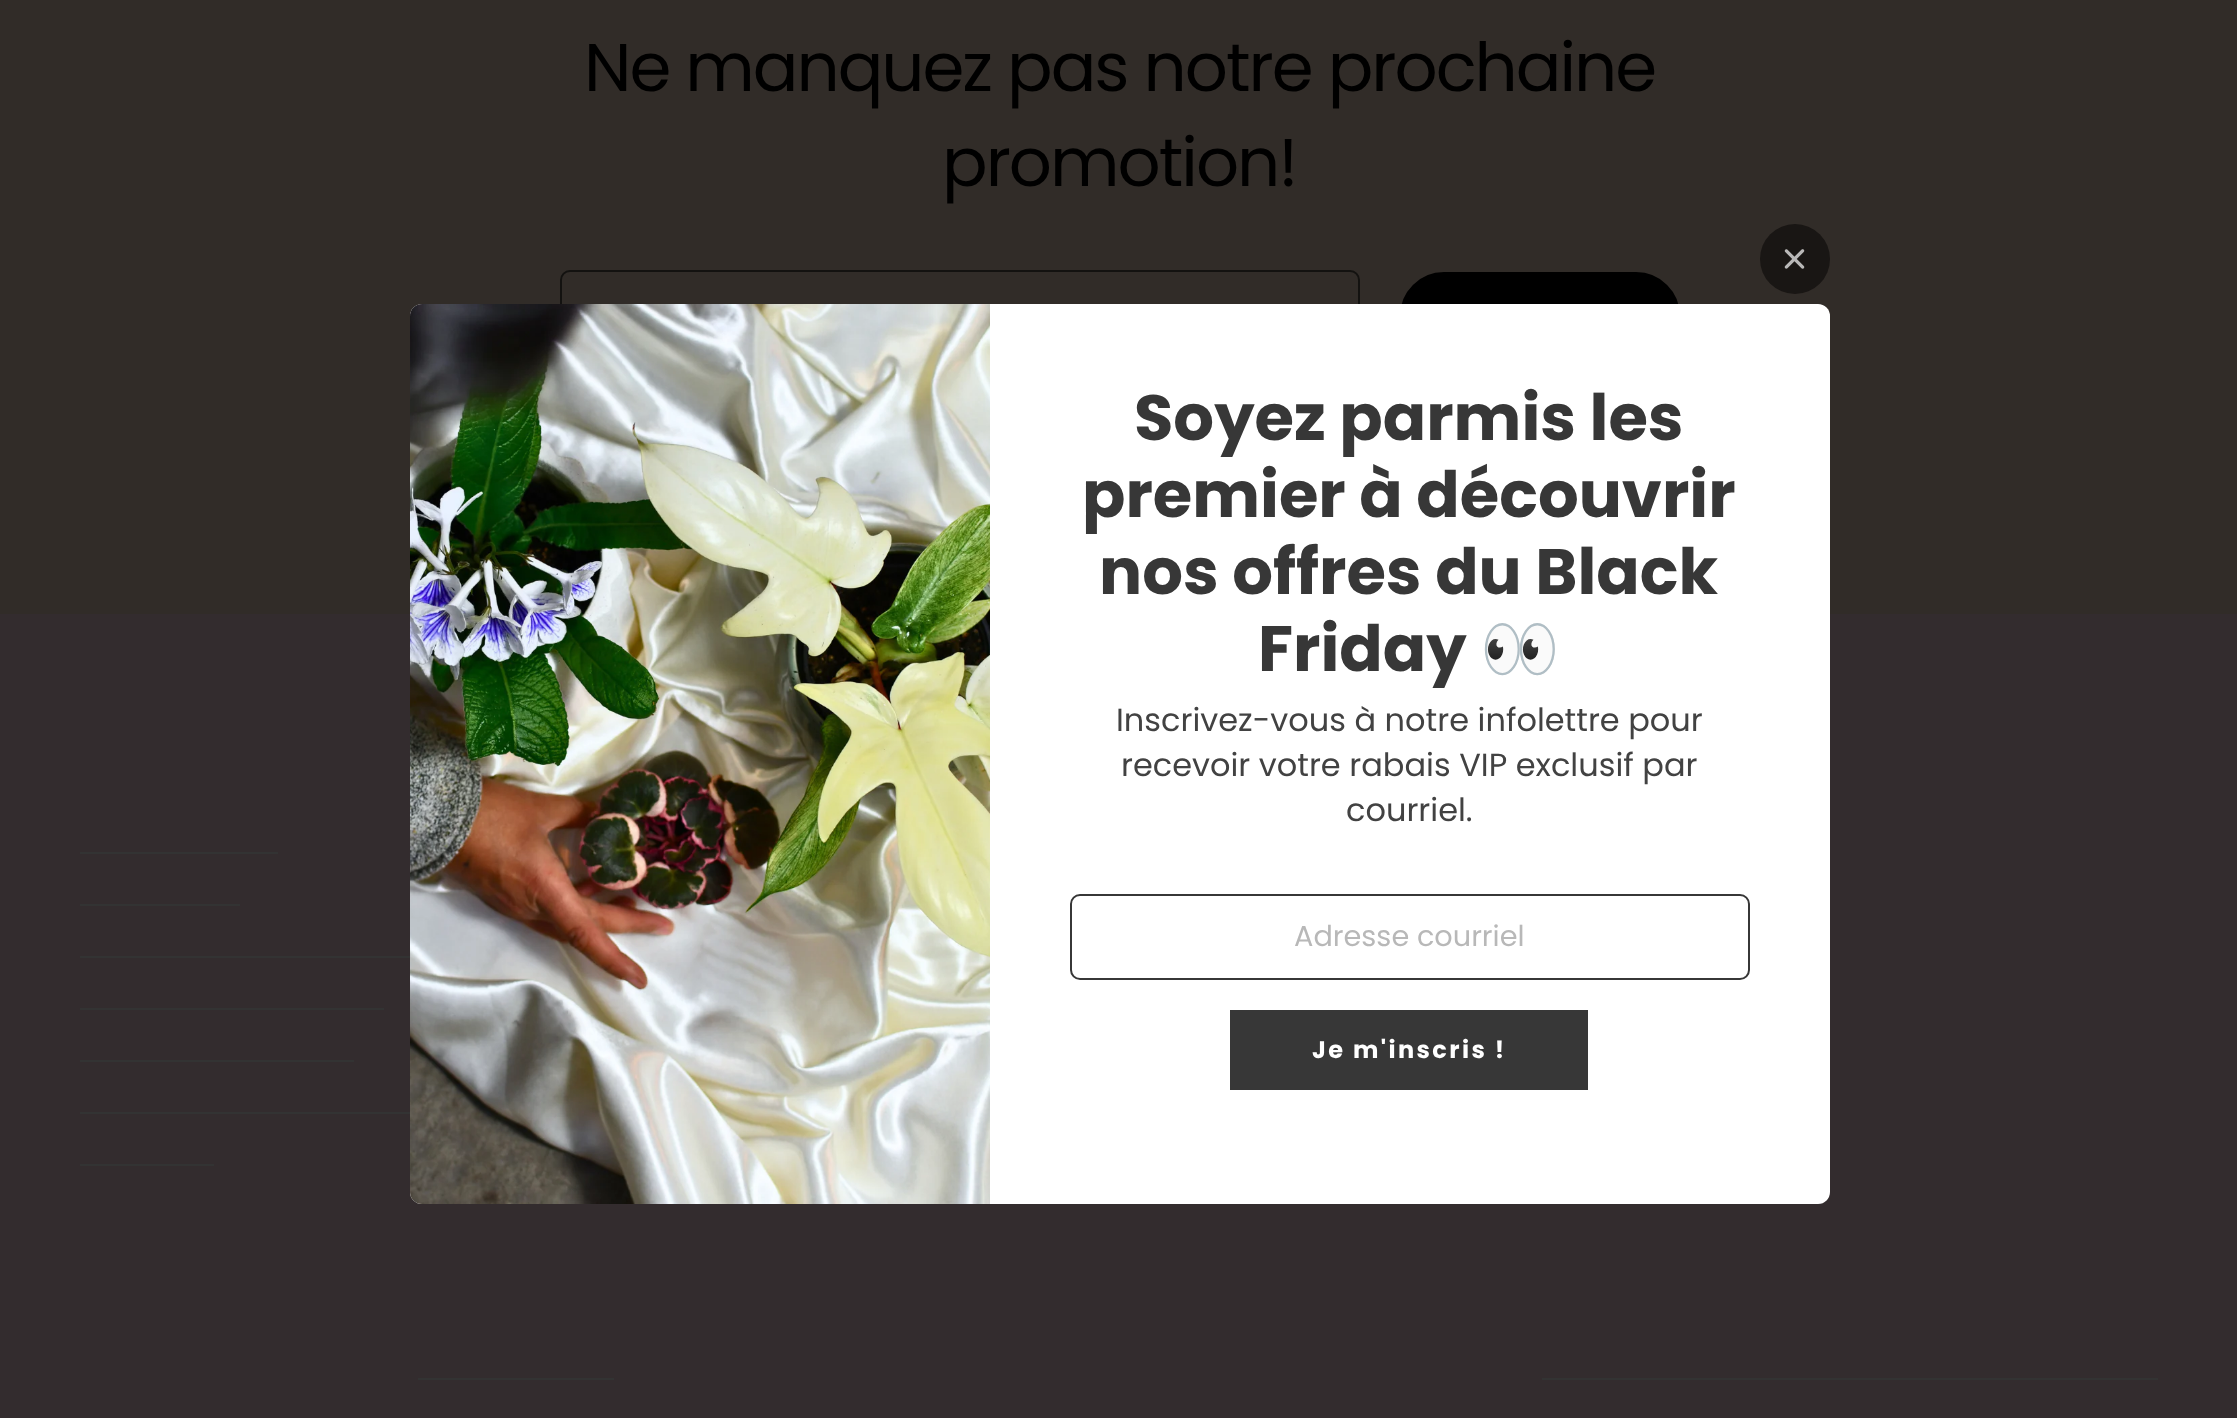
async function draw(canvas) {
	canvas.width = 2237;
	canvas.height = 1418;
	const c = canvas.getContext('2d');
	c.miterLimit = 4;
	c.fontKerning = 'normal';
	async function loadImage(src) {
		const img = new Image();
		img.src = src;
		await img.decode();
		return img;
	}

	c.fillStyle = '#332c2e';
	c.fillRect(0, 0, 2237, 1418);
	c.fillStyle = '#312c28';
	c.fillRect(0, 0, 2237, 614);
	c.letterSpacing = '-2px';
	c.font = '67.5px Poppins';
	c.fillStyle = '#000';
	c.fillText('Ne manquez pas notre prochaine', 584, 91);
	c.fillText('promotion!', 942, 186);
	c.beginPath();
	c.roundRect(561, 271, 798, 90, 9);
	c.strokeStyle = '#131210';
	c.lineWidth = 2;
	c.stroke();
	c.beginPath();
	c.roundRect(1401, 273, 278, 86, 43);
	c.fill();
	c.strokeStyle = '#000';
	c.stroke();
	c.fillStyle = '#191614';
	c.beginPath();
	c.arc(1795, 259, 35, 0, 2 * Math.PI);
	c.fill();
	c.drawImage(await loadImage('img1.png'), 1784, 249, 21, 20);
	c.fillStyle = '#fff';
	c.beginPath();
	c.roundRect(410, 304, 1420, 900, 12);
	c.fill();
	c.drawImage(await loadImage('img2.png'), 410, 304, 580, 900);
	c.letterSpacing = '0px';
	c.font = 'bold 64px Poppins';
	c.fillStyle = '#373737';
	for (const [text, x, y] of [
		['Soyez parmis les', 1134, 440],
		['premier à découvrir', 1082, 517],
		['nos offres du Black', 1099, 594],
		['Friday', 1258, 671],
	]) {
		c.fillText(text, x, y);
	}
	c.font = 'bold 64px Noto Color Emoji';
	c.fillText('👀', 1480, 671);
	c.font = '32px Poppins';
	c.fillStyle = '#424242';
	for (const [text, x, y] of [
		['Inscrivez-vous à notre infolettre pour', 1116, 731],
		['recevoir votre rabais VIP exclusif par', 1121, 776],
		['courriel.', 1346, 821],
	]) {
		c.fillText(text, x, y);
	}
	c.beginPath();
	c.roundRect(1071, 895, 678, 84, 9);
	c.strokeStyle = '#373737';
	c.stroke();
	c.font = '28.75px Poppins';
	c.fillStyle = '#b8b8b8';
	c.fillText('Adresse courriel', 1294, 946);
	c.fillStyle = '#373737';
	c.fillRect(1230, 1010, 358, 80);
	c.letterSpacing = '2.4px';
	c.font = 'bold 24px Poppins';
	c.fillStyle = '#fff';
	c.fillText('Je m\'inscris !', 1312, 1058);
	for (const [x, y, w, h, color] of [
		[80, 852, 198, 2, '#333'],
		[80, 904, 160, 2, '#333'],
		[80, 956, 330, 2, '#333'],
		[80, 1008, 304, 2, '#333'],
		[80, 1060, 274, 2, '#333'],
		[80, 1112, 330, 2, '#333'],
		[80, 1164, 134, 2, '#333'],
		[418, 1378, 196, 2, '#333'],
		[1542, 1378, 616, 2, '#333'],
	]) {
		c.fillStyle = color;
		c.fillRect(x, y, w, h);
	}
}

draw(document.querySelector('canvas'));
